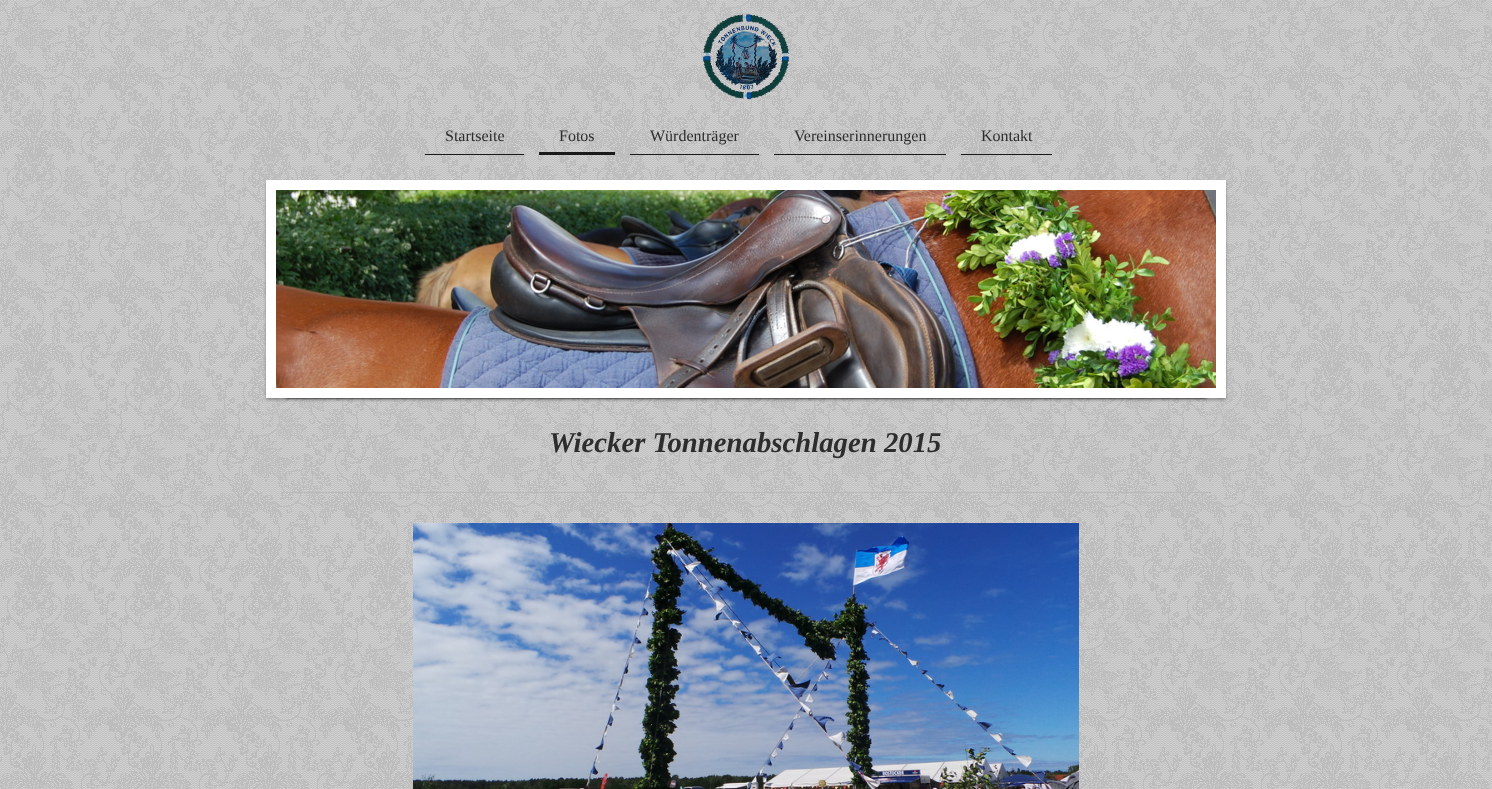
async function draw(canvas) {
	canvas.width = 1492;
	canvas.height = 789;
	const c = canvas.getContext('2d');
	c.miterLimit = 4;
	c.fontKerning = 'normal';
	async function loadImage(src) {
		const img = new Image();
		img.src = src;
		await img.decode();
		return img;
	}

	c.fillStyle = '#fff';
	c.fillRect(0, 0, 1492, 789);
	c.drawImage(await loadImage('img1.png'), 0, 0, 1492, 789);
	c.drawImage(await loadImage('img2.png'), 702, 14, 87, 86);
	c.font = '16px Liberation Serif';
	c.fillStyle = '#2d2d2d';
	c.fillText('Startseite', 445, 141);
	c.fillStyle = '#1a1a1a';
	c.fillRect(425, 154, 99, 1);
	c.fillStyle = '#2d2d2d';
	c.fillText('Fotos', 559, 141);
	c.fillStyle = '#1a1a1a';
	c.fillRect(539, 152, 76, 3);
	c.fillStyle = '#2d2d2d';
	c.fillText('Würdenträger', 650, 141);
	c.fillStyle = '#1a1a1a';
	c.fillRect(630, 154, 129, 1);
	c.fillStyle = '#2d2d2d';
	c.fillText('Vereinserinnerungen', 794, 141);
	c.fillStyle = '#1a1a1a';
	c.fillRect(774, 154, 172, 1);
	c.fillStyle = '#2d2d2d';
	c.fillText('Kontakt', 981, 141);
	c.fillStyle = '#1a1a1a';
	c.fillRect(961, 154, 91, 1);
	c.fillStyle = '#0000004d';
	c.filter = 'blur(1.5px)';
	c.beginPath();
	c.rect(266, 182, 960, 218);
	c.fill();
	c.filter = 'none';
	c.fillStyle = '#000';
	c.filter = 'blur(1px)';
	c.beginPath();
	c.rect(286, 220, 920, 178);
	c.fill();
	c.filter = 'none';
	c.strokeStyle = '#fff';
	c.lineWidth = 10;
	c.strokeRect(271, 185, 950, 208);
	c.drawImage(await loadImage('img3.png'), 276, 190, 940, 198);
	c.font = 'italic bold 28.75px Liberation Serif';
	c.fillStyle = '#2d2d2d';
	c.fillText('Wiecker Tonnenabschlagen 2015', 549, 452);
	c.fillStyle = '#bababa';
	c.fillRect(281, 492, 930, 1);
	c.drawImage(await loadImage('img4.png'), 413, 523, 666, 266);
}

draw(document.querySelector('canvas'));
